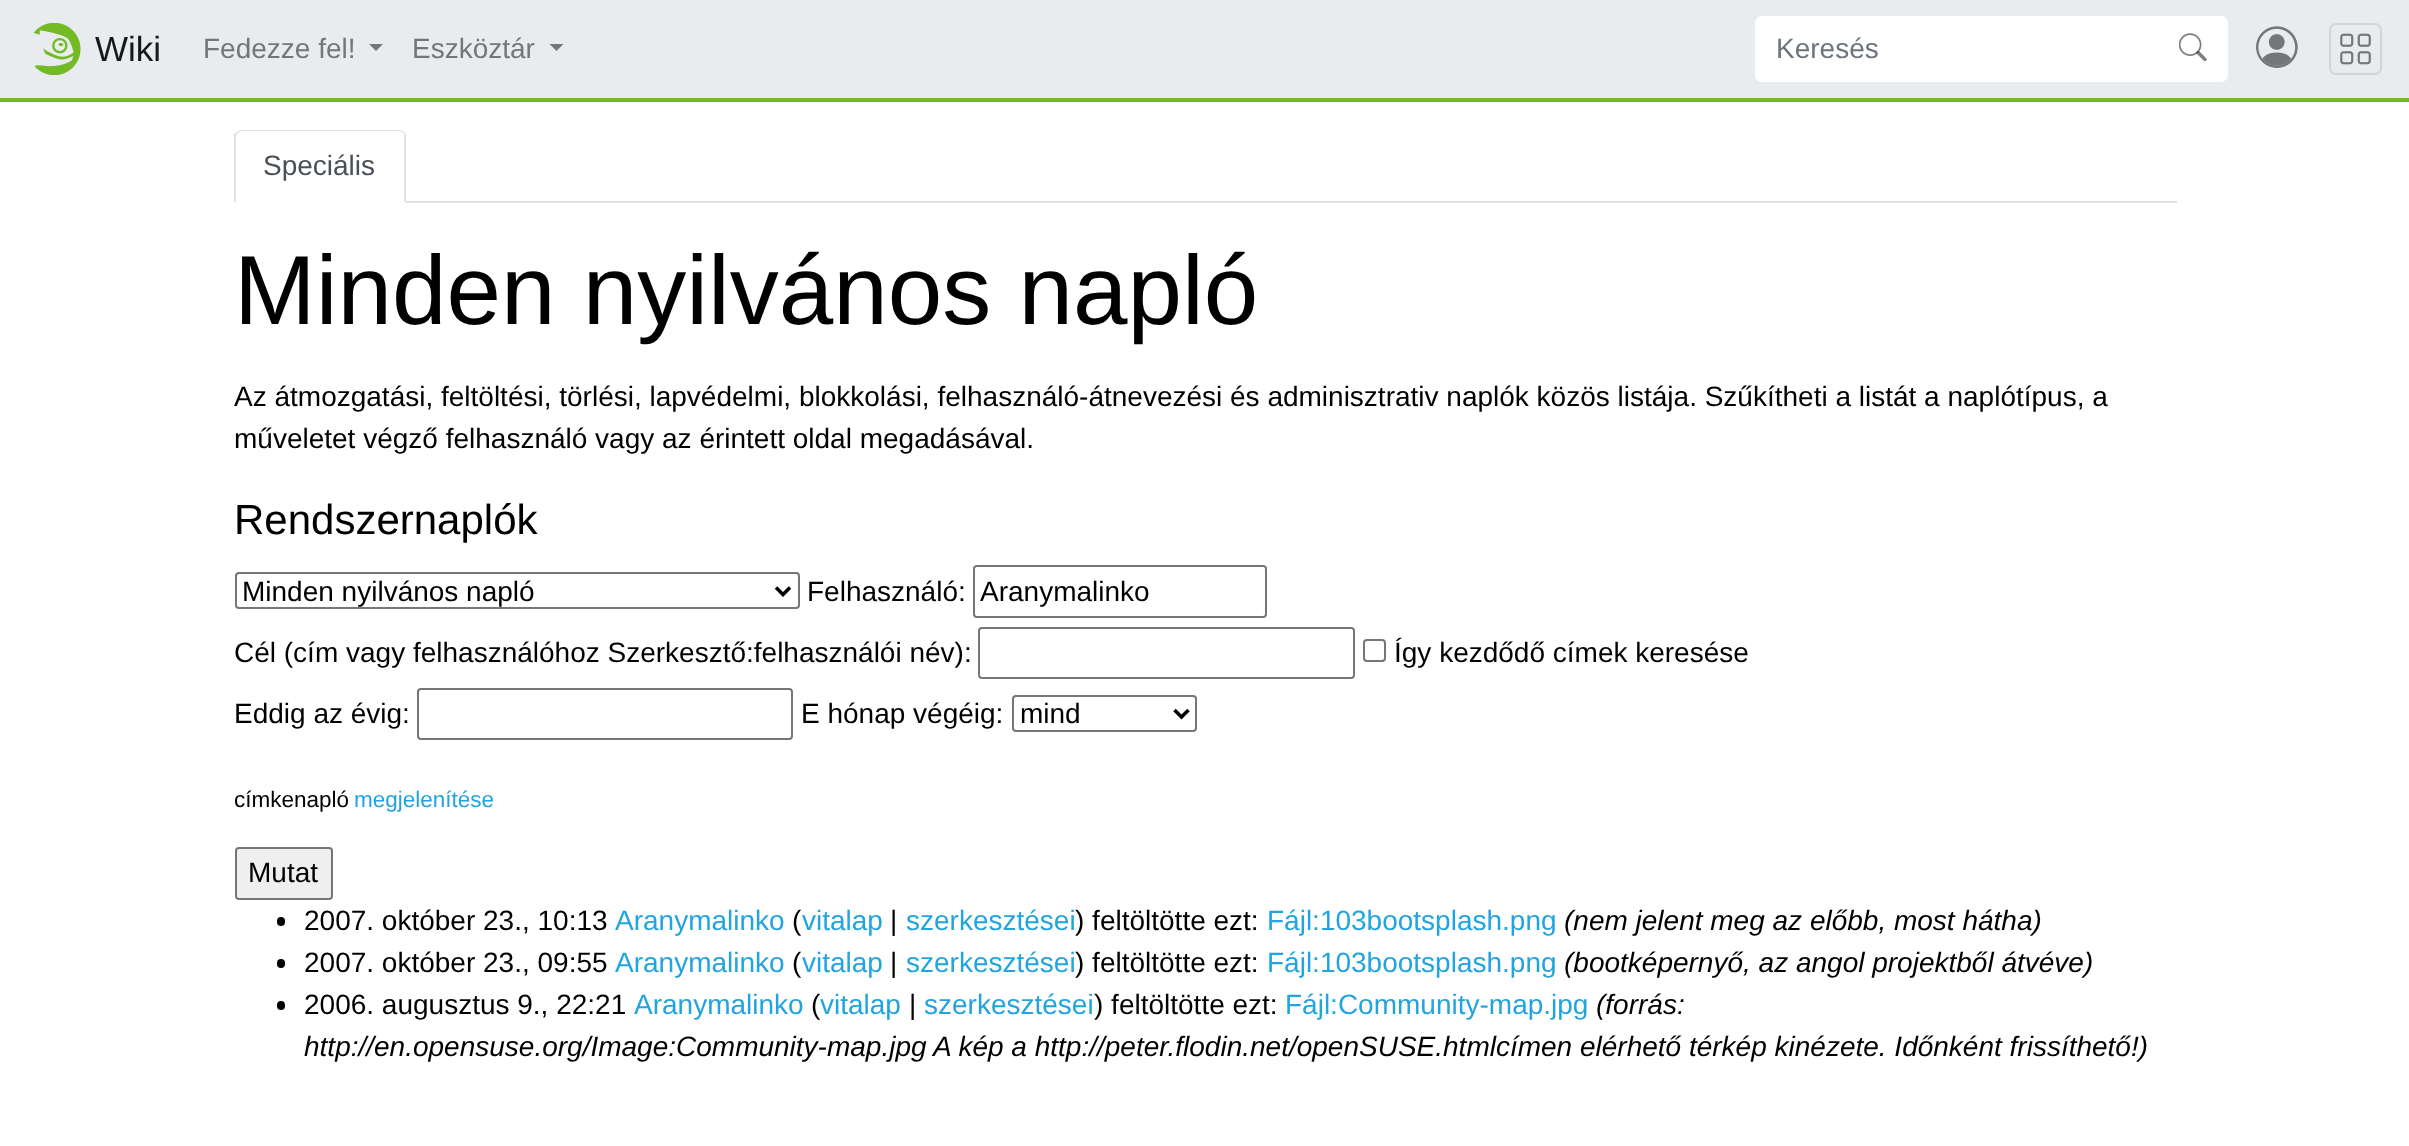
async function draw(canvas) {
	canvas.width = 2409;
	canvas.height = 1146;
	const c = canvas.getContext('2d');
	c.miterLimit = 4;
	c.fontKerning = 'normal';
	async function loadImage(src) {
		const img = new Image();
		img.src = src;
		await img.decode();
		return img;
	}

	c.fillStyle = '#fff';
	c.fillRect(0, 0, 2409, 1146);
	c.fillStyle = '#e9ecef';
	c.fillRect(0, 0, 2409, 98);
	c.fillStyle = '#73ba25';
	c.fillRect(0, 98, 2409, 4);
	c.drawImage(await loadImage('img1.png'), 33, 23, 48, 52);
	c.font = '35px Liberation Sans';
	c.fillStyle = '#171818';
	c.fillText('Wiki', 95, 61);
	c.font = '28px Liberation Sans';
	c.fillStyle = '#757678';
	c.fillText('Fedezze fel!', 203, 58);
	c.beginPath();
	c.moveTo(369, 44);
	c.lineTo(383, 44);
	c.lineTo(376, 51);
	c.closePath();
	c.fill();
	c.fillText('Eszköztár', 412, 58);
	c.beginPath();
	c.moveTo(549.5, 44);
	c.lineTo(563.5, 44);
	c.lineTo(556.5, 51);
	c.closePath();
	c.fill();
	c.fillStyle = '#fff';
	c.beginPath();
	c.roundRect(1755, 16, 405, 66, [7, 0, 0, 7]);
	c.fill();
	c.fillStyle = '#6c757d';
	c.fillText('Keresés', 1776, 58);
	c.fillStyle = '#fff';
	c.beginPath();
	c.roundRect(2158, 16, 70, 66, [0, 7, 7, 0]);
	c.fill();
	c.drawImage(await loadImage('img2.png'), 2179, 33, 28, 28);
	c.drawImage(await loadImage('img3.png'), 2256, 26, 42, 42);
	c.beginPath();
	c.roundRect(2330, 24, 51, 50, 6);
	c.strokeStyle = '#d2d4d7';
	c.lineWidth = 2;
	c.stroke();
	c.drawImage(await loadImage('img4.png'), 2340, 33, 31, 32);
	c.fillStyle = '#dee2e6';
	c.fillRect(406, 201, 1771, 2);
	c.beginPath();
	c.moveTo(242, 130);
	c.bezierCurveTo(240, 130, 238, 131, 237, 132);
	c.lineTo(238, 133);
	c.lineTo(241, 131);
	c.lineTo(399, 131);
	c.bezierCurveTo(400, 131, 402, 132, 403, 133);
	c.lineTo(404, 132);
	c.bezierCurveTo(403, 131, 401, 130, 399, 130);
	c.closePath();
	c.fill();
	c.beginPath();
	c.moveTo(404, 132);
	c.lineTo(406, 135);
	c.lineTo(406, 203);
	c.lineTo(404, 201);
	c.lineTo(404, 136);
	c.bezierCurveTo(404, 135, 404, 134, 403, 133);
	c.closePath();
	c.fill();
	c.fillStyle = '#fff';
	c.beginPath();
	c.moveTo(406, 203);
	c.lineTo(404, 201);
	c.lineTo(236, 201);
	c.lineTo(234, 203);
	c.closePath();
	c.fill();
	c.fillStyle = '#dee2e6';
	c.beginPath();
	c.moveTo(234, 203);
	c.lineTo(236, 201);
	c.lineTo(236, 136);
	c.lineTo(238, 133);
	c.lineTo(237, 132);
	c.lineTo(234, 134);
	c.closePath();
	c.fill();
	c.fillStyle = '#495057';
	c.fillText('Speciális', 263, 175);
	c.font = '98px Liberation Sans';
	c.fillStyle = '#000';
	c.fillText('Minden nyilvános napló', 234, 324);
	c.font = '28px Liberation Sans';
	c.fillText('Az átmozgatási, feltöltési, törlési, lapvédelmi, blokkolási, felhasználó-átnevezési és adminisztrativ naplók közös listája. Szűkítheti a listát a naplótípus, a', 234, 406);
	c.fillText('műveletet végző felhasználó vagy az érintett oldal megadásával.', 234, 448);
	c.font = '42px Liberation Sans';
	c.fillText('Rendszernaplók', 234, 534);
	c.beginPath();
	c.roundRect(236, 573, 563, 35, 3);
	c.strokeStyle = '#767676';
	c.stroke();
	c.beginPath();
	c.moveTo(776, 587.5);
	c.lineTo(783, 594.5);
	c.lineTo(790, 587.5);
	c.strokeStyle = '#000';
	c.lineWidth = 3.5;
	c.stroke();
	c.font = '28px Liberation Sans';
	c.fillText('Minden nyilvános napló', 242, 601);
	c.fillText('Felhasználó:', 807, 601);
	c.beginPath();
	c.roundRect(974, 566, 292, 51, 3);
	c.strokeStyle = '#767676';
	c.lineWidth = 2;
	c.stroke();
	c.fillText('Aranymalinko', 980, 601);
	c.fillText('Cél (cím vagy felhasználóhoz Szerkesztő:felhasználói név):', 234, 662);
	c.beginPath();
	c.roundRect(979, 628, 375, 50, 3);
	c.stroke();
	c.beginPath();
	c.roundRect(1364, 640, 21, 21, 3);
	c.stroke();
	c.fillText('Így kezdődő címek keresése', 1394, 662);
	c.fillText('Eddig az évig:', 234, 723);
	c.beginPath();
	c.roundRect(418, 689, 374, 50, 3);
	c.stroke();
	c.fillText('E hónap végéig:', 801, 723);
	c.beginPath();
	c.roundRect(1013, 696, 183, 35, 3);
	c.stroke();
	c.beginPath();
	c.moveTo(1174.5, 710);
	c.lineTo(1181.5, 717);
	c.lineTo(1188.5, 710);
	c.strokeStyle = '#000';
	c.lineWidth = 3.5;
	c.stroke();
	c.fillText('mind', 1020, 723);
	c.font = '22.5px Liberation Sans';
	c.fillText('címkenapló', 234, 807);
	c.fillStyle = '#21a4df';
	c.fillText('megjelenítése', 354, 807);
	c.fillStyle = '#efefef';
	c.beginPath();
	c.roundRect(236, 848, 96, 51, 3);
	c.fill();
	c.strokeStyle = '#767676';
	c.lineWidth = 2;
	c.stroke();
	c.font = '28px Liberation Sans';
	c.fillStyle = '#000';
	c.fillText('Mutat', 248, 882);
	c.beginPath();
	c.roundRect(277, 917, 8, 9, 4);
	c.fill();
	c.fillText('2007. október 23., 10:13', 304, 930);
	c.fillStyle = '#21a4df';
	c.fillText('Aranymalinko', 615, 930);
	c.fillStyle = '#000';
	c.fillText('(', 792, 930);
	c.fillStyle = '#21a4df';
	c.fillText('vitalap', 802, 930);
	c.fillStyle = '#000';
	c.fillText('|', 890, 930);
	c.fillStyle = '#21a4df';
	c.fillText('szerkesztései', 906, 930);
	c.fillStyle = '#000';
	c.fillText(') feltöltötte ezt:', 1075, 930);
	c.fillStyle = '#21a4df';
	c.fillText('Fájl:103bootsplash.png', 1267, 930);
	c.font = 'italic 28px Liberation Sans';
	c.fillStyle = '#000';
	c.fillText('(nem jelent meg az előbb, most hátha)', 1564, 930);
	c.beginPath();
	c.roundRect(277, 959, 8, 9, 4);
	c.fill();
	c.font = '28px Liberation Sans';
	c.fillText('2007. október 23., 09:55', 304, 972);
	c.fillStyle = '#21a4df';
	c.fillText('Aranymalinko', 615, 972);
	c.fillStyle = '#000';
	c.fillText('(', 792, 972);
	c.fillStyle = '#21a4df';
	c.fillText('vitalap', 802, 972);
	c.fillStyle = '#000';
	c.fillText('|', 890, 972);
	c.fillStyle = '#21a4df';
	c.fillText('szerkesztései', 906, 972);
	c.fillStyle = '#000';
	c.fillText(') feltöltötte ezt:', 1075, 972);
	c.fillStyle = '#21a4df';
	c.fillText('Fájl:103bootsplash.png', 1267, 972);
	c.font = 'italic 28px Liberation Sans';
	c.fillStyle = '#000';
	c.fillText('(bootképernyő, az angol projektből átvéve)', 1564, 972);
	c.beginPath();
	c.roundRect(277, 1001, 8, 9, 4);
	c.fill();
	c.font = '28px Liberation Sans';
	c.fillText('2006. augusztus 9., 22:21', 304, 1014);
	c.fillStyle = '#21a4df';
	c.fillText('Aranymalinko', 634, 1014);
	c.fillStyle = '#000';
	c.fillText('(', 811, 1014);
	c.fillStyle = '#21a4df';
	c.fillText('vitalap', 820, 1014);
	c.fillStyle = '#000';
	c.fillText('|', 909, 1014);
	c.fillStyle = '#21a4df';
	c.fillText('szerkesztései', 924, 1014);
	c.fillStyle = '#000';
	c.fillText(') feltöltötte ezt:', 1094, 1014);
	c.fillStyle = '#21a4df';
	c.fillText('Fájl:Community-map.jpg', 1285, 1014);
	c.font = 'italic 28px Liberation Sans';
	c.fillStyle = '#000';
	for (const [text, x, y] of [
		['(forrás:', 1596, 1014],
		['http://en.opensuse.org/Image:Community-map.jpg', 304, 1056],
		['A kép a http://peter.flodin.net/openSUSE.htmlcímen elérhető térkép kinézete. Időnként frissíthető!)', 933, 1056],
	]) {
		c.fillText(text, x, y);
	}
}

draw(document.querySelector('canvas'));
